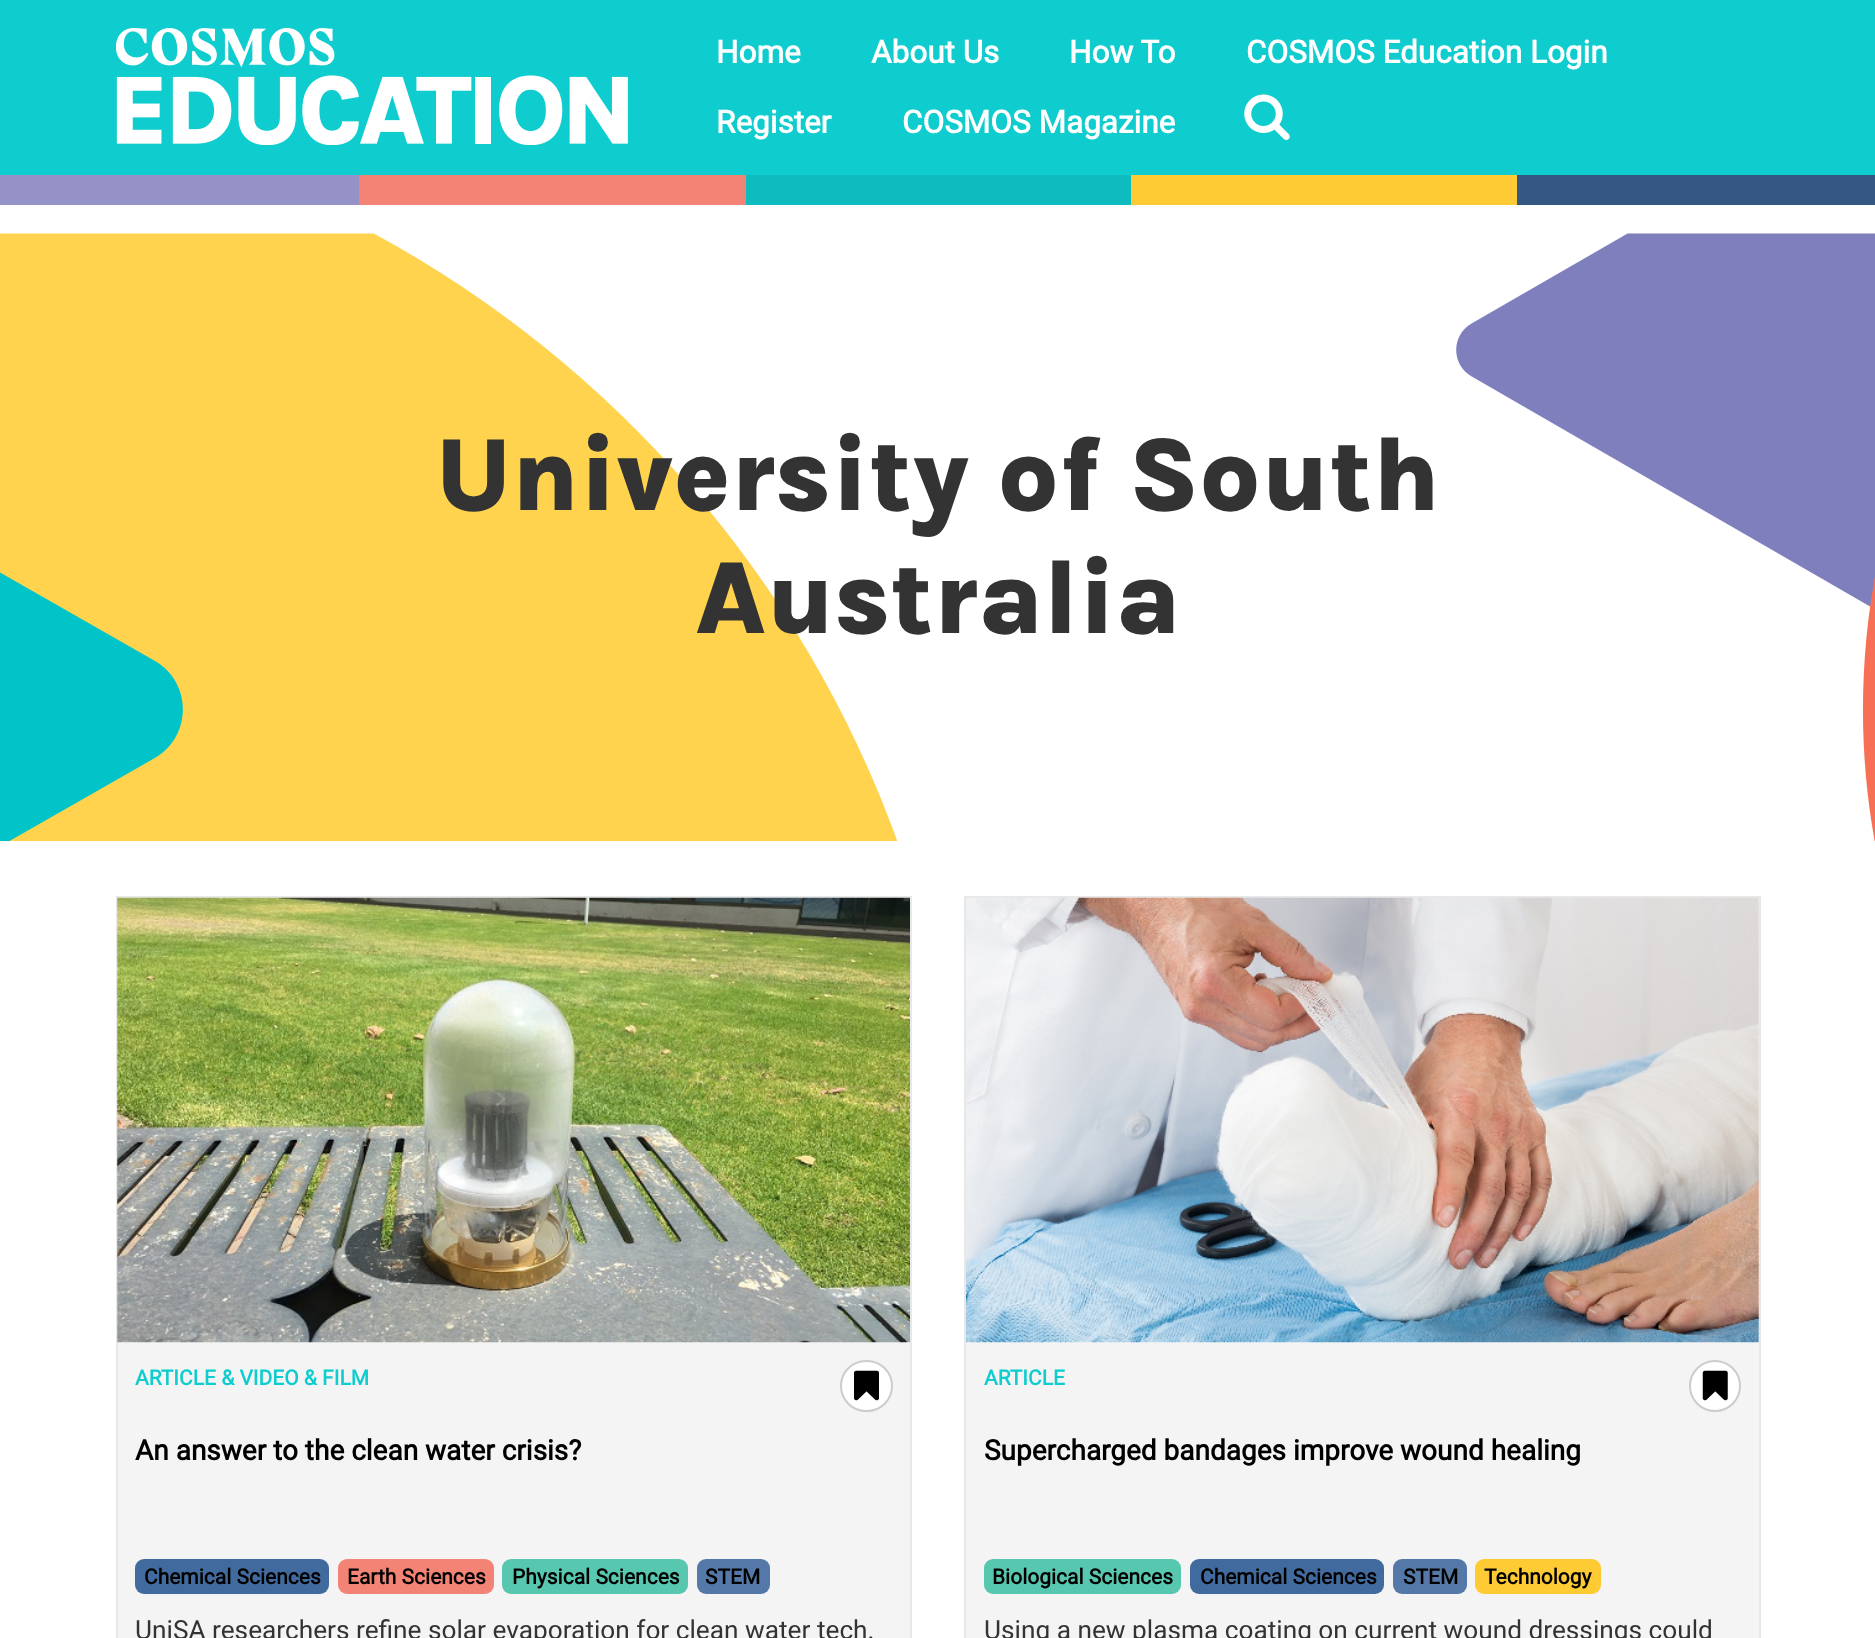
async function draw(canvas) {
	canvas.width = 1875;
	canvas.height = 1638;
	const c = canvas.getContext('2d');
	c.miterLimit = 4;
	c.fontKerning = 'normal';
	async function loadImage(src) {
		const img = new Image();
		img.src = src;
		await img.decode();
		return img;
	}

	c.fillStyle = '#fff';
	c.fillRect(0, 0, 1875, 1638);
	c.fillStyle = '#0fccce';
	c.fillRect(0, 0, 1875, 175);
	c.drawImage(await loadImage('img1.png'), 116, 28, 512, 117);
	c.font = 'bold 31.5px Roboto';
	c.fillStyle = '#fff';
	for (const [text, x, y] of [
		['Home', 716, 63],
		['About Us', 871, 63],
		['How To', 1069, 63],
		['COSMOS Education Login', 1246, 63],
		['Register', 716, 133],
		['COSMOS Magazine', 902, 133],
	]) {
		c.fillText(text, x, y);
	}
	c.drawImage(await loadImage('img2.png'), 1244, 94, 46, 46);
	for (const [x, y, w, h, color] of [
		[0, 175, 359, 30, '#9592c8'],
		[359, 175, 387, 30, '#f38375'],
		[746, 175, 385, 30, '#0ebbbe'],
		[1131, 175, 386, 30, '#fecb34'],
		[1517, 175, 358, 30, '#355882'],
	]) {
		c.fillStyle = color;
		c.fillRect(x, y, w, h);
	}
	c.drawImage(await loadImage('img3.png'), 0, 233, 1875, 609);
	c.font = '800 105px Karla';
	c.fillStyle = '#333';
	c.fillText('University of South', 435, 510);
	c.fillText('Australia', 695, 633);
	c.fillStyle = '#f4f4f4';
	c.fillRect(118, 1342, 792, 296);
	c.strokeStyle = '#e8e8e8';
	c.lineWidth = 2;
	c.strokeRect(117, 897, 794, 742);
	c.drawImage(await loadImage('img4.png'), 117, 897, 793, 446);
	c.font = 'bold 21px Roboto';
	c.fillStyle = '#0fccce';
	c.fillText('ARTICLE & VIDEO & FILM', 135, 1385);
	c.fillStyle = '#fff';
	c.beginPath();
	c.roundRect(841, 1361, 51, 50, 25);
	c.fill();
	c.strokeStyle = '#ccc';
	c.stroke();
	c.drawImage(await loadImage('img5.png'), 854, 1370, 25, 31);
	c.font = 'bold 28px Roboto';
	c.fillStyle = '#000';
	c.fillText('An answer to the clean water crisis?', 135, 1460);
	c.fillStyle = '#416b9f';
	c.beginPath();
	c.roundRect(135, 1559, 194, 35, 9);
	c.fill();
	c.font = 'bold 21px Roboto';
	c.fillStyle = '#000';
	c.fillText('Chemical Sciences', 144, 1584);
	c.fillStyle = '#f38375';
	c.beginPath();
	c.roundRect(338, 1559, 156, 35, 9);
	c.fill();
	c.fillStyle = '#000';
	c.fillText('Earth Sciences', 347, 1584);
	c.fillStyle = '#57c7b0';
	c.beginPath();
	c.roundRect(502, 1559, 186, 35, 9);
	c.fill();
	c.fillStyle = '#000';
	c.fillText('Physical Sciences', 512, 1584);
	c.fillStyle = '#5479a8';
	c.beginPath();
	c.roundRect(697, 1559, 73, 35, 9);
	c.fill();
	c.fillStyle = '#000';
	c.fillText('STEM', 705, 1584);
	c.font = '26.25px Roboto';
	c.fillStyle = '#333';
	c.fillText('UniSA researchers refine solar evaporation for clean water tech.', 135, 1639);
	c.fillStyle = '#f4f4f4';
	c.beginPath();
	c.rect(965, 897, 795, 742);
	c.fill();
	c.strokeStyle = '#e8e8e8';
	c.stroke();
	c.drawImage(await loadImage('img6.png'), 966, 897, 793, 446);
	c.font = 'bold 21px Roboto';
	c.fillStyle = '#0fccce';
	c.fillText('ARTICLE', 984, 1385);
	c.fillStyle = '#fff';
	c.beginPath();
	c.arc(1715, 1386, 25, 0, 2 * Math.PI);
	c.fill();
	c.strokeStyle = '#ccc';
	c.stroke();
	c.drawImage(await loadImage('img7.png'), 1702, 1370, 26, 31);
	c.font = 'bold 28px Roboto';
	c.fillStyle = '#000';
	c.fillText('Supercharged bandages improve wound healing', 984, 1460);
	c.fillStyle = '#57c7b0';
	c.beginPath();
	c.roundRect(984, 1559, 197, 35, 9);
	c.fill();
	c.font = 'bold 21px Roboto';
	c.fillStyle = '#000';
	c.fillText('Biological Sciences', 992, 1584);
	c.fillStyle = '#416b9f';
	c.beginPath();
	c.roundRect(1190, 1559, 194, 35, 9);
	c.fill();
	c.fillStyle = '#000';
	c.fillText('Chemical Sciences', 1200, 1584);
	c.fillStyle = '#5479a8';
	c.beginPath();
	c.roundRect(1393, 1559, 74, 35, 9);
	c.fill();
	c.fillStyle = '#000';
	c.fillText('STEM', 1403, 1584);
	c.fillStyle = '#fecb34';
	c.beginPath();
	c.roundRect(1475, 1559, 126, 35, 9);
	c.fill();
	c.fillStyle = '#000';
	c.fillText('Technology', 1484, 1584);
	c.font = '26.25px Roboto';
	c.fillStyle = '#333';
	c.fillText('Using a new plasma coating on current wound dressings could', 984, 1639);
}

draw(document.querySelector('canvas'));
